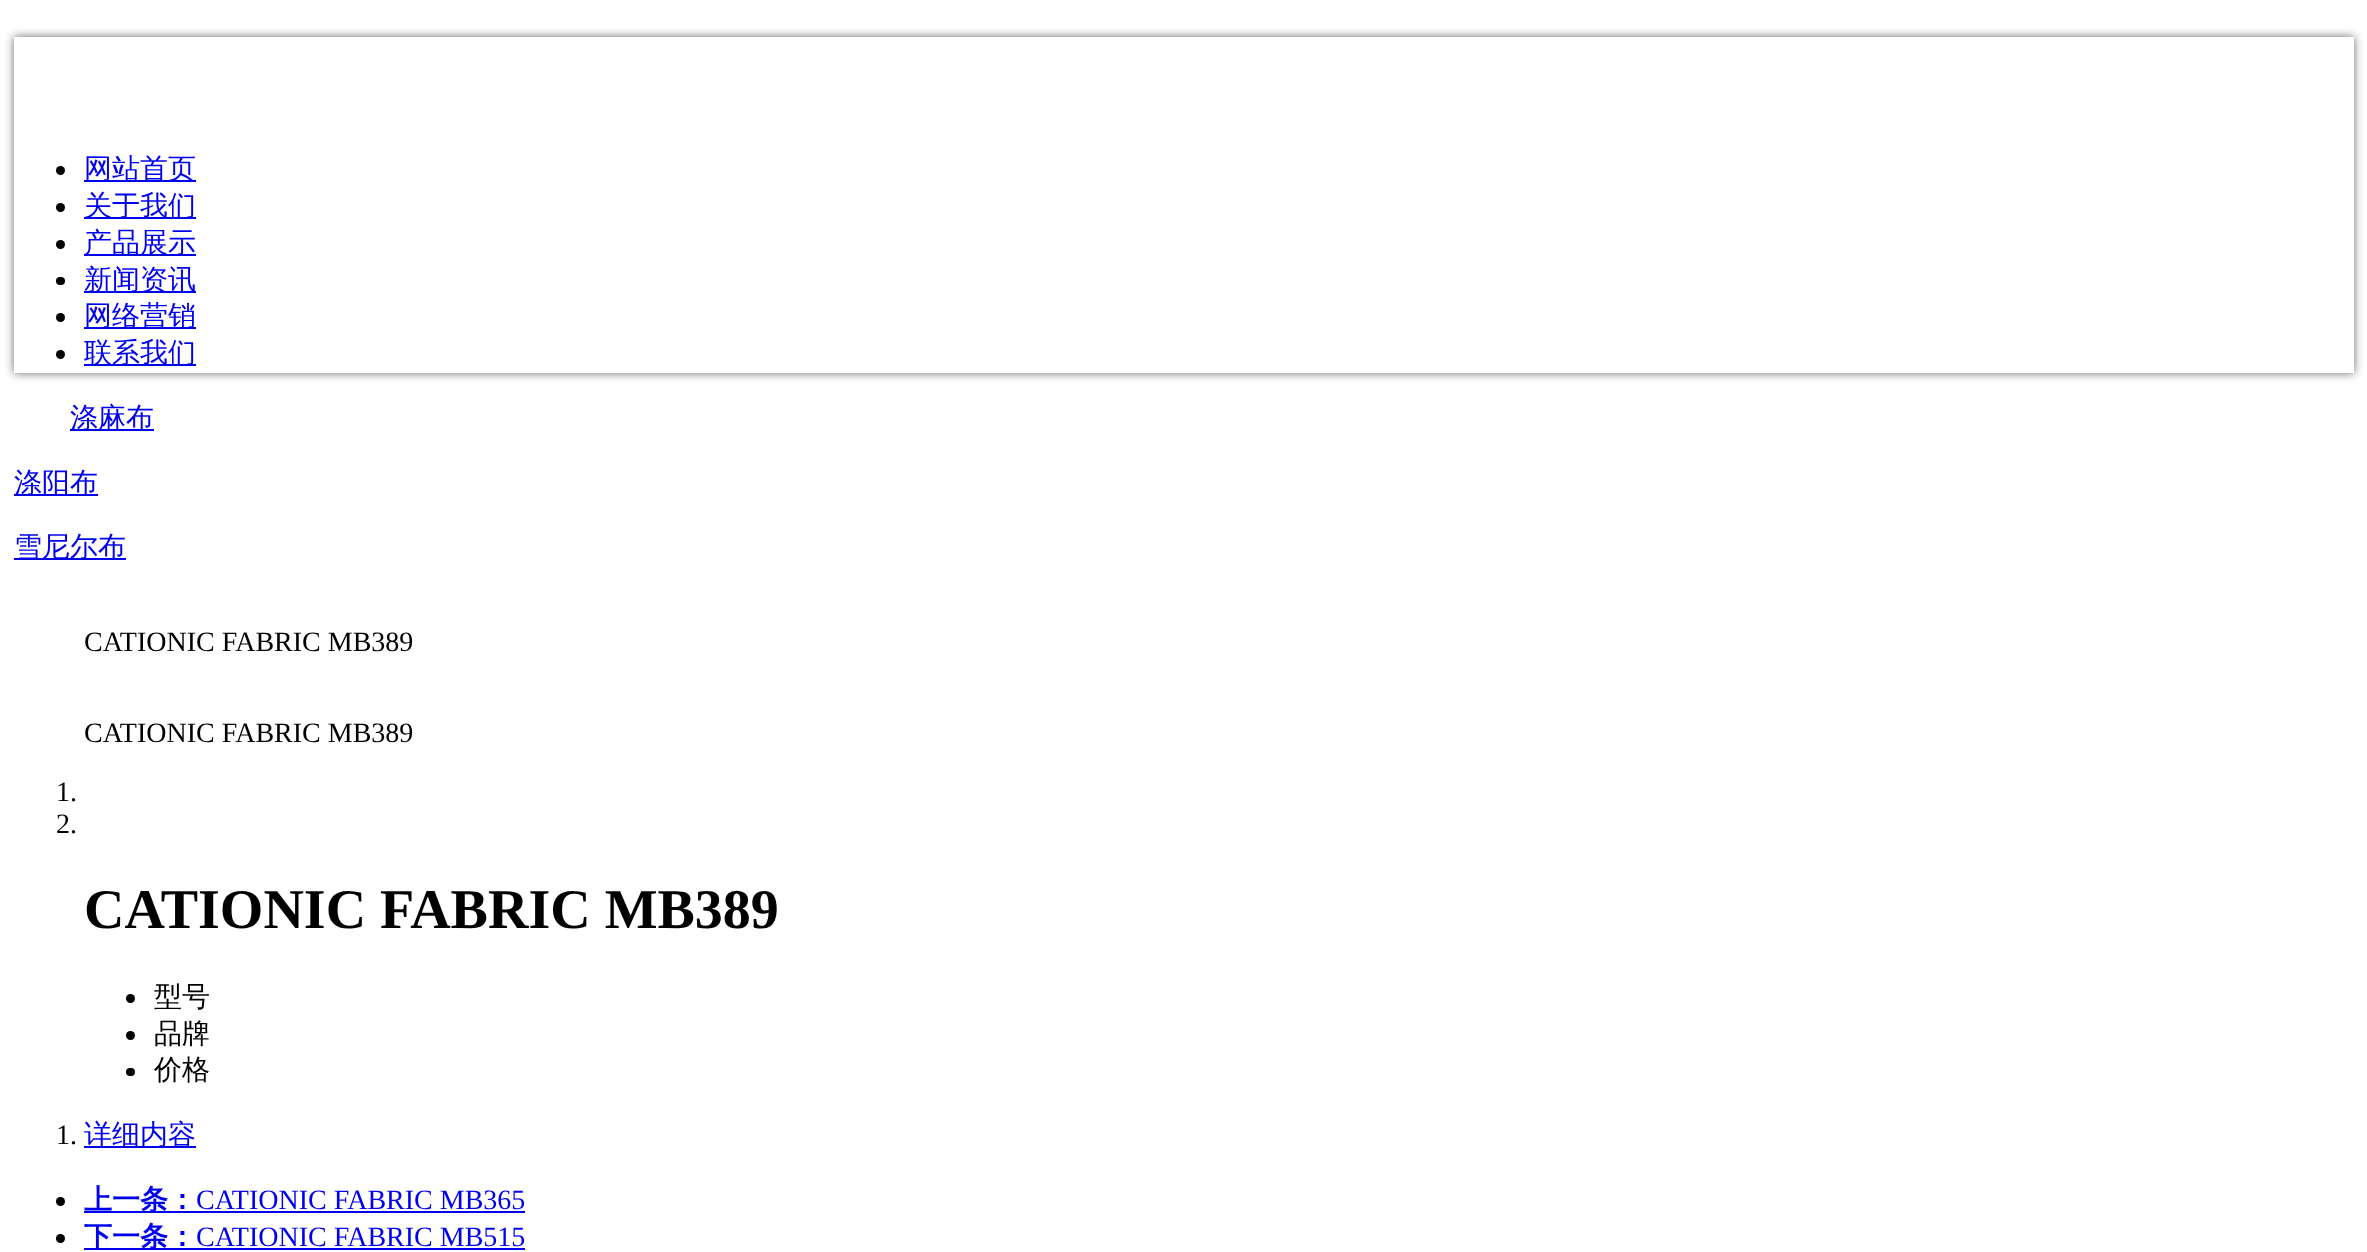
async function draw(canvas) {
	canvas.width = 2367;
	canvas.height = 1252;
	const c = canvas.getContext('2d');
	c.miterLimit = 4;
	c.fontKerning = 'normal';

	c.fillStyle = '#fff';
	c.fillRect(0, 0, 2367, 1252);
	c.fillStyle = '#666';
	c.filter = 'blur(5px)';
	c.beginPath();
	c.rect(14, 37, 2340, 336);
	c.fill();
	c.filter = 'none';
	c.fillStyle = '#fff';
	c.fillRect(14, 37, 2340, 336);
	c.fillStyle = '#000';
	c.beginPath();
	c.arc(60.5, 170.5, 4.5, 0, 2 * Math.PI);
	c.fill();
	c.fillStyle = '#00e';
	c.fillRect(84, 180, 112, 2);
	c.font = '500 28px WenQuanYi Zen Hei';
	c.fillText('网站首页', 84, 178);
	c.fillStyle = '#000';
	c.beginPath();
	c.arc(60.5, 207.5, 4.5, 0, 2 * Math.PI);
	c.fill();
	c.fillStyle = '#00e';
	c.fillRect(84, 217, 112, 2);
	c.fillText('关于我们', 84, 215);
	c.fillStyle = '#000';
	c.beginPath();
	c.arc(60.5, 244.5, 4.5, 0, 2 * Math.PI);
	c.fill();
	c.fillStyle = '#00e';
	c.fillRect(84, 254, 112, 2);
	c.fillText('产品展示', 84, 252);
	c.fillStyle = '#000';
	c.beginPath();
	c.roundRect(56, 277, 9, 8, 4);
	c.fill();
	c.fillStyle = '#00e';
	c.fillRect(84, 291, 112, 2);
	c.fillText('新闻资讯', 84, 289);
	c.fillStyle = '#000';
	c.beginPath();
	c.arc(60.5, 317.5, 4.5, 0, 2 * Math.PI);
	c.fill();
	c.fillStyle = '#00e';
	c.fillRect(84, 327, 112, 2);
	c.fillText('网络营销', 84, 325);
	c.fillStyle = '#000';
	c.beginPath();
	c.arc(60.5, 354.5, 4.5, 0, 2 * Math.PI);
	c.fill();
	c.fillStyle = '#00e';
	c.fillRect(84, 364, 112, 2);
	c.fillText('联系我们', 84, 362);
	c.fillRect(70, 429, 84, 2);
	c.fillText('涤麻布', 70, 427);
	c.fillRect(14, 494, 84, 2);
	c.fillText('涤阳布', 14, 492);
	c.fillRect(14, 558, 112, 2);
	c.fillText('雪尼尔布', 14, 556);
	c.font = '28px Liberation Serif';
	c.fillStyle = '#000';
	for (const [text, x, y] of [
		['CATIONIC FABRIC MB389', 84, 651],
		['CATIONIC FABRIC MB389', 84, 742],
		['1.', 56, 801],
		['2.', 56, 833],
	]) {
		c.fillText(text, x, y);
	}
	c.font = 'bold 56px Liberation Serif';
	c.fillText('CATIONIC FABRIC MB389', 84, 928);
	c.beginPath();
	c.arc(130.5, 998.5, 4.5, 0, 2 * Math.PI);
	c.fill();
	c.font = '500 28px WenQuanYi Zen Hei';
	c.fillText('型号', 154, 1006);
	c.beginPath();
	c.arc(130.5, 1035.5, 4.5, 0, 2 * Math.PI);
	c.fill();
	c.fillText('品牌', 154, 1043);
	c.beginPath();
	c.roundRect(126, 1068, 9, 8, 4);
	c.fill();
	c.fillText('价格', 154, 1079);
	c.font = '28px Liberation Serif';
	c.fillText('1.', 56, 1144);
	c.fillStyle = '#00e';
	c.fillRect(84, 1146, 112, 2);
	c.font = '500 28px WenQuanYi Zen Hei';
	c.fillText('详细内容', 84, 1144);
	c.fillStyle = '#000';
	c.beginPath();
	c.arc(60.5, 1201.5, 4.5, 0, 2 * Math.PI);
	c.fill();
	c.fillStyle = '#00e';
	c.fillRect(84, 1211, 441, 2);
	c.font = 'bold 28px WenQuanYi Zen Hei';
	c.fillText('上一条：', 84, 1209);
	c.font = '28px Liberation Serif';
	c.fillText('CATIONIC FABRIC MB365', 196, 1209);
	c.fillStyle = '#000';
	c.beginPath();
	c.arc(60.5, 1238.5, 4.5, 0, 2 * Math.PI);
	c.fill();
	c.fillStyle = '#00e';
	c.fillRect(84, 1248, 441, 2);
	c.font = 'bold 28px WenQuanYi Zen Hei';
	c.fillText('下一条：', 84, 1246);
	c.font = '28px Liberation Serif';
	c.fillText('CATIONIC FABRIC MB515', 196, 1246);
}

draw(document.querySelector('canvas'));
